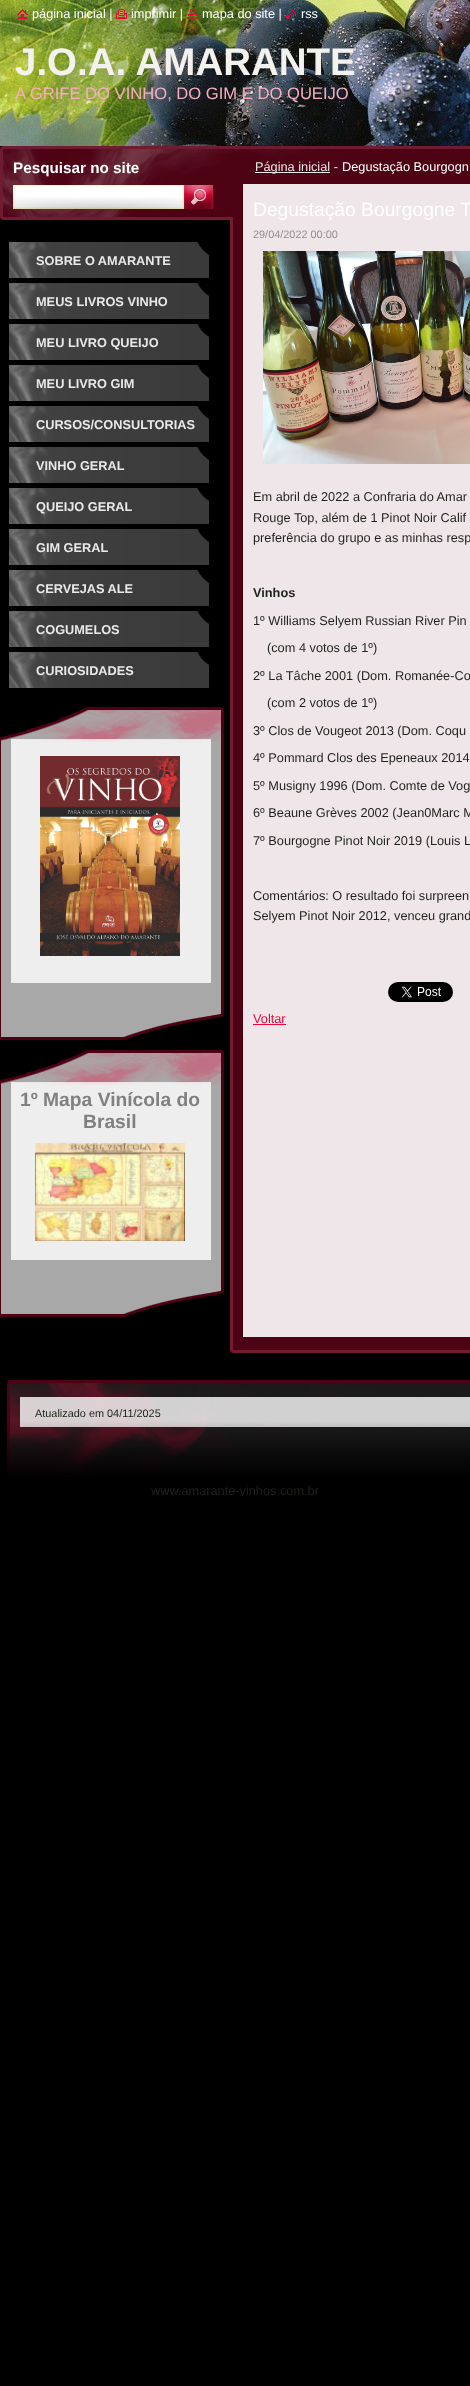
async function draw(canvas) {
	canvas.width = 470;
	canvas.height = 2386;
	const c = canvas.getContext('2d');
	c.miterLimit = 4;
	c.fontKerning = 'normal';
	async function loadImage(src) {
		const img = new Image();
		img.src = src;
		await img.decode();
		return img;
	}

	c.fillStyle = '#000';
	c.fillRect(0, 0, 470, 2386);
	c.drawImage(await loadImage('img5.png'), 0, 0, 470, 146);
	c.drawImage(await loadImage('img1.png'), 17, 9, 11, 10);
	c.font = '12.75px Liberation Sans';
	c.fillStyle = '#fff';
	c.fillText('página inicial |', 32, 18);
	c.drawImage(await loadImage('img2.png'), 116, 9, 11, 10);
	c.fillText('imprimir |', 131, 18);
	c.drawImage(await loadImage('img3.png'), 187, 9, 11, 10);
	c.fillText('mapa do site |', 202, 18);
	c.drawImage(await loadImage('img4.png'), 286, 9, 10, 10);
	c.fillText('rss', 301, 18);
	c.font = 'bold 38.5px Liberation Sans';
	c.fillStyle = '#f3f2ef';
	c.fillText('J.O.A. AMARANTE', 15, 75);
	c.font = '16.6px Liberation Sans';
	c.fillStyle = '#f8adbf';
	c.fillText('A GRIFE DO VINHO, DO GIM E DO QUEIJO', 15, 99);
	c.drawImage(await loadImage('img6.png'), 0, 146, 230, 74);
	c.font = 'bold 15.25px Liberation Sans';
	c.fillStyle = '#fff';
	c.fillText('Pesquisar no site', 13, 173);
	c.drawImage(await loadImage('img7.png'), 13, 185, 171, 24);
	c.drawImage(await loadImage('img8.png'), 184, 185, 29, 24);
	c.drawImage(await loadImage('img9.png'), 230, 218, 240, 1132);
	c.drawImage(await loadImage('img10.png'), 230, 146, 240, 72);
	c.fillStyle = '#e9e9e9';
	c.fillRect(255, 172, 75, 1);
	c.font = '12.75px Liberation Sans';
	c.fillText('Página inicial -', 255, 171);
	c.fillStyle = '#fff';
	c.fillText('Degustação Bourgogn', 342, 171);
	c.fillStyle = '#eee6e8';
	c.fillRect(243, 184, 227, 1153);
	c.font = '19.25px Liberation Sans';
	c.fillStyle = '#fff';
	c.fillText('Degustação Bourgogne T', 253, 216);
	c.font = '10.9px Liberation Sans';
	c.fillStyle = '#919192';
	c.fillText('29/04/2022 00:00', 253, 238);
	c.drawImage(await loadImage('img11.png'), 263, 251, 207, 213);
	c.font = '12.75px Liberation Sans';
	c.fillStyle = '#1f221c';
	for (const [text, x, y] of [
		['Em abril de 2022 a Confraria do Amar', 253, 501],
		['Rouge Top, além de 1 Pinot Noir Calif', 253, 522],
		['preferência do grupo e as minhas resp', 253, 542],
	]) {
		c.fillText(text, x, y);
	}
	c.font = 'bold 12.75px Liberation Sans';
	c.fillText('Vinhos', 253, 597);
	c.font = '12.75px Liberation Sans';
	for (const [text, x, y] of [
		['1º Williams Selyem Russian River Pin', 253, 625],
		['(com 4 votos de 1º)', 267, 652],
		['2º La Tâche 2001 (Dom. Romanée-Co', 253, 680],
		['(com 2 votos de 1º)', 267, 707],
		['3º Clos de Vougeot 2013 (Dom. Coqu', 253, 735],
		['4º Pommard Clos des Epeneaux 2014', 253, 762],
		['5º Musigny 1996 (Dom. Comte de Vog', 253, 790],
		['6º Beaune Grèves 2002 (Jean0Marc M', 253, 817],
		['7º Bourgogne Pinot Noir 2019 (Louis L', 253, 845],
		['Comentários: O resultado foi surpreen', 253, 900],
		['Selyem Pinot Noir 2012, venceu grand', 253, 920],
	]) {
		c.fillText(text, x, y);
	}
	c.drawImage(await loadImage('img12.png'), 388, 982, 65, 20);
	c.fillStyle = '#eb063c';
	c.fillText('Voltar', 253, 1023);
	c.fillRect(253, 1024, 33, 1);
	c.drawImage(await loadImage('img13.png'), 230, 1350, 240, 3);
	c.drawImage(await loadImage('img14.png'), 9, 242, 200, 36);
	c.font = 'bold 12.75px Liberation Sans';
	c.fillStyle = '#e9e9e9';
	c.fillText('SOBRE O AMARANTE', 36, 265);
	c.drawImage(await loadImage('img14.png'), 9, 283, 200, 36);
	c.fillText('MEUS LIVROS VINHO', 36, 306);
	c.drawImage(await loadImage('img14.png'), 9, 324, 200, 36);
	c.fillText('MEU LIVRO QUEIJO', 36, 347);
	c.drawImage(await loadImage('img14.png'), 9, 365, 200, 36);
	c.fillText('MEU LIVRO GIM', 36, 388);
	c.drawImage(await loadImage('img14.png'), 9, 406, 200, 36);
	c.fillText('CURSOS/CONSULTORIAS', 36, 429);
	c.drawImage(await loadImage('img14.png'), 9, 447, 200, 36);
	c.fillText('VINHO GERAL', 36, 470);
	c.drawImage(await loadImage('img14.png'), 9, 488, 200, 36);
	c.fillText('QUEIJO GERAL', 36, 511);
	c.drawImage(await loadImage('img14.png'), 9, 529, 200, 36);
	c.fillText('GIM GERAL', 36, 552);
	c.drawImage(await loadImage('img14.png'), 9, 570, 200, 36);
	c.fillText('CERVEJAS ALE', 36, 593);
	c.drawImage(await loadImage('img14.png'), 9, 611, 200, 36);
	c.fillText('COGUMELOS', 36, 634);
	c.drawImage(await loadImage('img14.png'), 9, 652, 200, 36);
	c.fillText('CURIOSIDADES', 36, 675);
	c.drawImage(await loadImage('img15.png'), 0, 707, 224, 35);
	c.drawImage(await loadImage('img16.png'), 0, 742, 224, 241);
	c.drawImage(await loadImage('img17.png'), 40, 756, 140, 200);
	c.drawImage(await loadImage('img18.png'), 0, 983, 224, 57);
	c.drawImage(await loadImage('img15.png'), 0, 1050, 224, 35);
	c.drawImage(await loadImage('img19.png'), 0, 1085, 224, 175);
	c.font = 'bold 19.25px Liberation Sans';
	c.fillStyle = '#808080';
	c.fillText('1º Mapa Vinícola do', 20, 1106);
	c.fillText('Brasil', 83, 1128);
	c.drawImage(await loadImage('img20.png'), 35, 1143, 150, 98);
	c.drawImage(await loadImage('img18.png'), 0, 1260, 224, 57);
	c.drawImage(await loadImage('img21.png'), 7, 1380, 463, 97);
	c.font = '10.9px Liberation Sans';
	c.fillStyle = '#1f221c';
	c.fillText('Atualizado em 04/11/2025', 35, 1417);
	c.font = '12.75px Liberation Sans';
	c.fillText('www.amarante-vinhos.com.br', 151, 1495);
}

draw(document.querySelector('canvas'));
